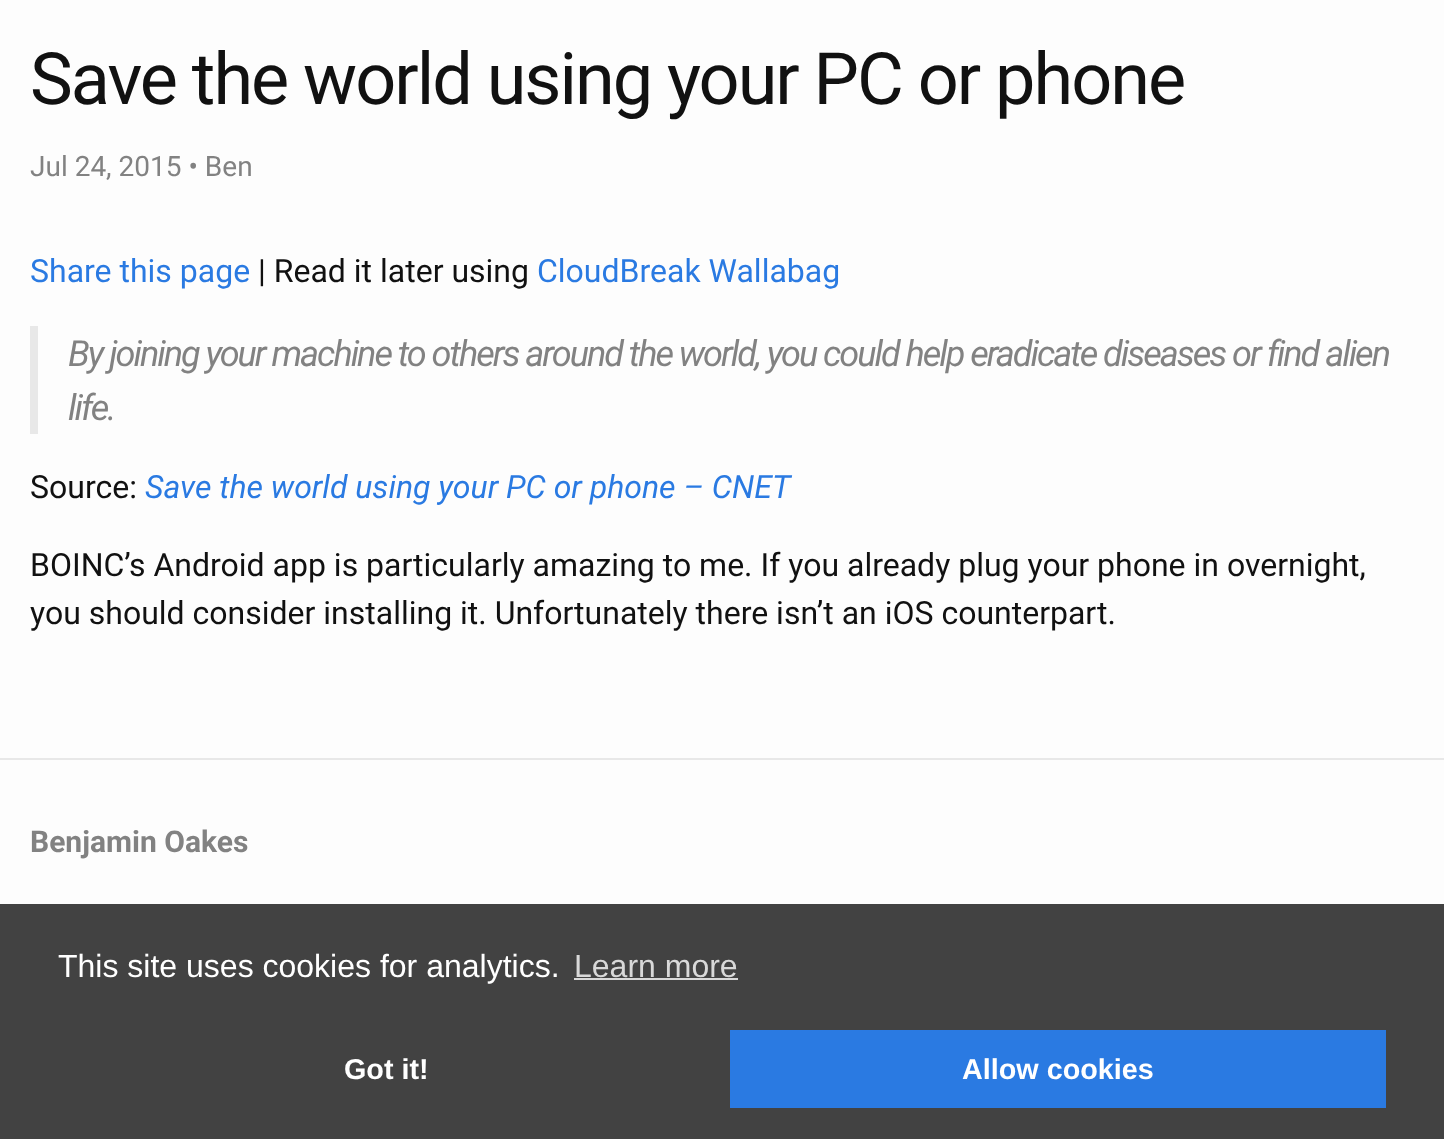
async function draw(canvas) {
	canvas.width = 1444;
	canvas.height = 1139;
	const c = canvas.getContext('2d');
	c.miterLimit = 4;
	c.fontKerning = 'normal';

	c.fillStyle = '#fdfdfd';
	c.fillRect(0, 0, 1444, 1139);
	c.letterSpacing = '-2px';
	c.font = '72px Roboto';
	c.fillStyle = '#111';
	c.fillText('Save the world using your PC or phone', 30, 104);
	c.letterSpacing = '0px';
	c.font = '28px Roboto';
	c.fillStyle = '#828282';
	c.fillText('Jul 24, 2015 • Ben', 30, 176);
	c.font = '32px Roboto';
	c.fillStyle = '#2a7ae2';
	c.fillText('Share this page', 30, 282);
	c.fillStyle = '#111';
	c.fillText('| Read it later using', 258, 282);
	c.fillStyle = '#2a7ae2';
	c.fillText('CloudBreak Wallabag', 537, 282);
	c.fillStyle = '#e8e8e8';
	c.fillRect(30, 326, 8, 108);
	c.letterSpacing = '-2px';
	c.font = 'italic 36px Roboto';
	c.fillStyle = '#828282';
	c.fillText('By joining your machine to others around the world, you could help eradicate diseases or find alien', 68, 366);
	c.fillText('life.', 68, 420);
	c.letterSpacing = '0px';
	c.font = '32px Roboto';
	c.fillStyle = '#111';
	c.fillText('Source:', 30, 498);
	c.font = 'italic 32px Roboto';
	c.fillStyle = '#2a7ae2';
	c.fillText('Save the world using your PC or phone – CNET', 145, 498);
	c.font = '32px Roboto';
	c.fillStyle = '#111';
	c.fillText('BOINC’s Android app is particularly amazing to me. If you already plug your phone in overnight,', 30, 576);
	c.fillText('you should consider installing it. Unfortunately there isn’t an iOS counterpart.', 30, 624);
	c.fillStyle = '#e8e8e8';
	c.fillRect(0, 758, 1444, 2);
	c.font = 'bold 30px Roboto';
	c.fillStyle = '#828282';
	c.fillText('Benjamin Oakes', 30, 852);
	c.fillStyle = '#424242';
	c.fillRect(0, 904, 1444, 235);
	c.font = '32px Liberation Sans';
	c.fillStyle = '#fff';
	c.fillText('This site uses cookies for analytics.', 58, 977);
	c.fillStyle = '#d9d9d9';
	c.fillText('Learn more', 574, 977);
	c.fillRect(574, 978, 164, 2);
	c.font = 'bold 28.75px Liberation Sans';
	c.fillStyle = '#fff';
	c.fillText('Got it!', 344, 1079);
	c.fillStyle = '#2a7ae2';
	c.fillRect(730, 1030, 656, 78);
	c.fillStyle = '#fff';
	c.fillText('Allow cookies', 962, 1079);
}

draw(document.querySelector('canvas'));
